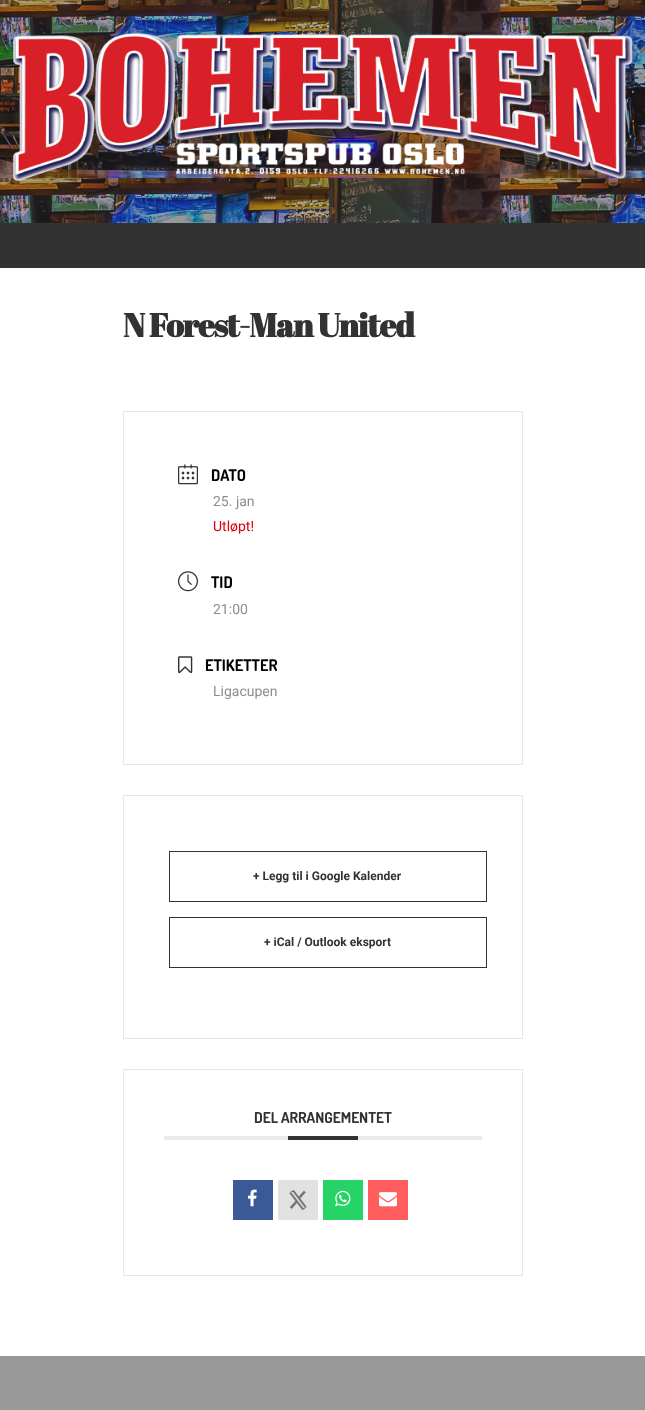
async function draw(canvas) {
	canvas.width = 645;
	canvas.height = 1410;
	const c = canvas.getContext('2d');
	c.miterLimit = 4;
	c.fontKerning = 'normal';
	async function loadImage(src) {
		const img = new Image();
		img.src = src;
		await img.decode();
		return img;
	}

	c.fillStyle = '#fff';
	c.fillRect(0, 0, 645, 1410);
	c.drawImage(await loadImage('img1.png'), 0, 0, 645, 223);
	c.drawImage(await loadImage('img2.png'), 12, 33, 621, 148);
	c.fillStyle = '#323232';
	c.fillRect(0, 223, 645, 45);
	c.letterSpacing = '-1px';
	c.font = 'bold 33px Abril Fatface';
	c.fillText('N Forest-Man United', 123, 337);
	c.strokeStyle = '#e6e7e8';
	c.strokeRect(123.5, 411.5, 399, 353);
	c.drawImage(await loadImage('img3.png'), 178, 464, 20, 21);
	c.letterSpacing = '0px';
	c.font = 'bold 16px Dosis';
	c.fillStyle = '#000';
	c.fillText('DATO', 211, 481);
	c.font = '14px Roboto';
	c.fillStyle = '#8d8d8d';
	c.fillText('25. jan', 213, 506);
	c.fillStyle = '#d8000c';
	c.fillText('Utløpt!', 213, 531);
	c.drawImage(await loadImage('img4.png'), 178, 571, 20, 21);
	c.font = 'bold 16px Dosis';
	c.fillStyle = '#000';
	c.fillText('TID', 211, 588);
	c.font = '14px Roboto';
	c.fillStyle = '#8d8d8d';
	c.fillText('21:00', 213, 614);
	c.drawImage(await loadImage('img5.png'), 178, 656, 15, 18);
	c.font = 'bold 16px Dosis';
	c.fillStyle = '#000';
	c.fillText('ETIKETTER', 205, 671);
	c.font = '14px Roboto';
	c.fillStyle = '#8d8d8d';
	c.fillText('Ligacupen', 213, 696);
	c.strokeRect(123.5, 795.5, 399, 243);
	c.strokeStyle = '#333';
	c.strokeRect(169.5, 851.5, 317, 50);
	c.font = 'bold 12px Roboto';
	c.fillStyle = '#323232';
	c.fillText('+ Legg til i Google Kalender', 253, 880);
	c.strokeRect(169.5, 917.5, 317, 50);
	c.fillText('+ iCal / Outlook eksport', 264, 946);
	c.strokeStyle = '#e6e7e8';
	c.strokeRect(123.5, 1069.5, 399, 206);
	c.fillStyle = '#ebebeb';
	c.fillRect(164, 1136, 318, 4);
	c.font = 'bold 15px Dosis';
	c.fillStyle = '#323232';
	c.fillText('DEL ARRANGEMENTET', 254, 1123);
	c.fillStyle = '#333';
	c.fillRect(288, 1136, 70, 4);
	c.fillStyle = '#3b5996';
	c.fillRect(233, 1180, 40, 40);
	c.drawImage(await loadImage('img6.png'), 247, 1189, 10, 18);
	c.fillStyle = '#e1e1e1';
	c.fillRect(278, 1180, 40, 40);
	c.drawImage(await loadImage('img7.png'), 289, 1190, 18, 20);
	c.fillStyle = '#25d366';
	c.fillRect(323, 1180, 40, 40);
	c.drawImage(await loadImage('img8.png'), 335, 1190, 16, 17);
	c.fillStyle = '#ff5d5e';
	c.fillRect(368, 1180, 40, 40);
	c.drawImage(await loadImage('img9.png'), 379, 1192, 18, 15);
	c.fillStyle = '#999';
	c.fillRect(0, 1356, 645, 54);
}

draw(document.querySelector('canvas'));
